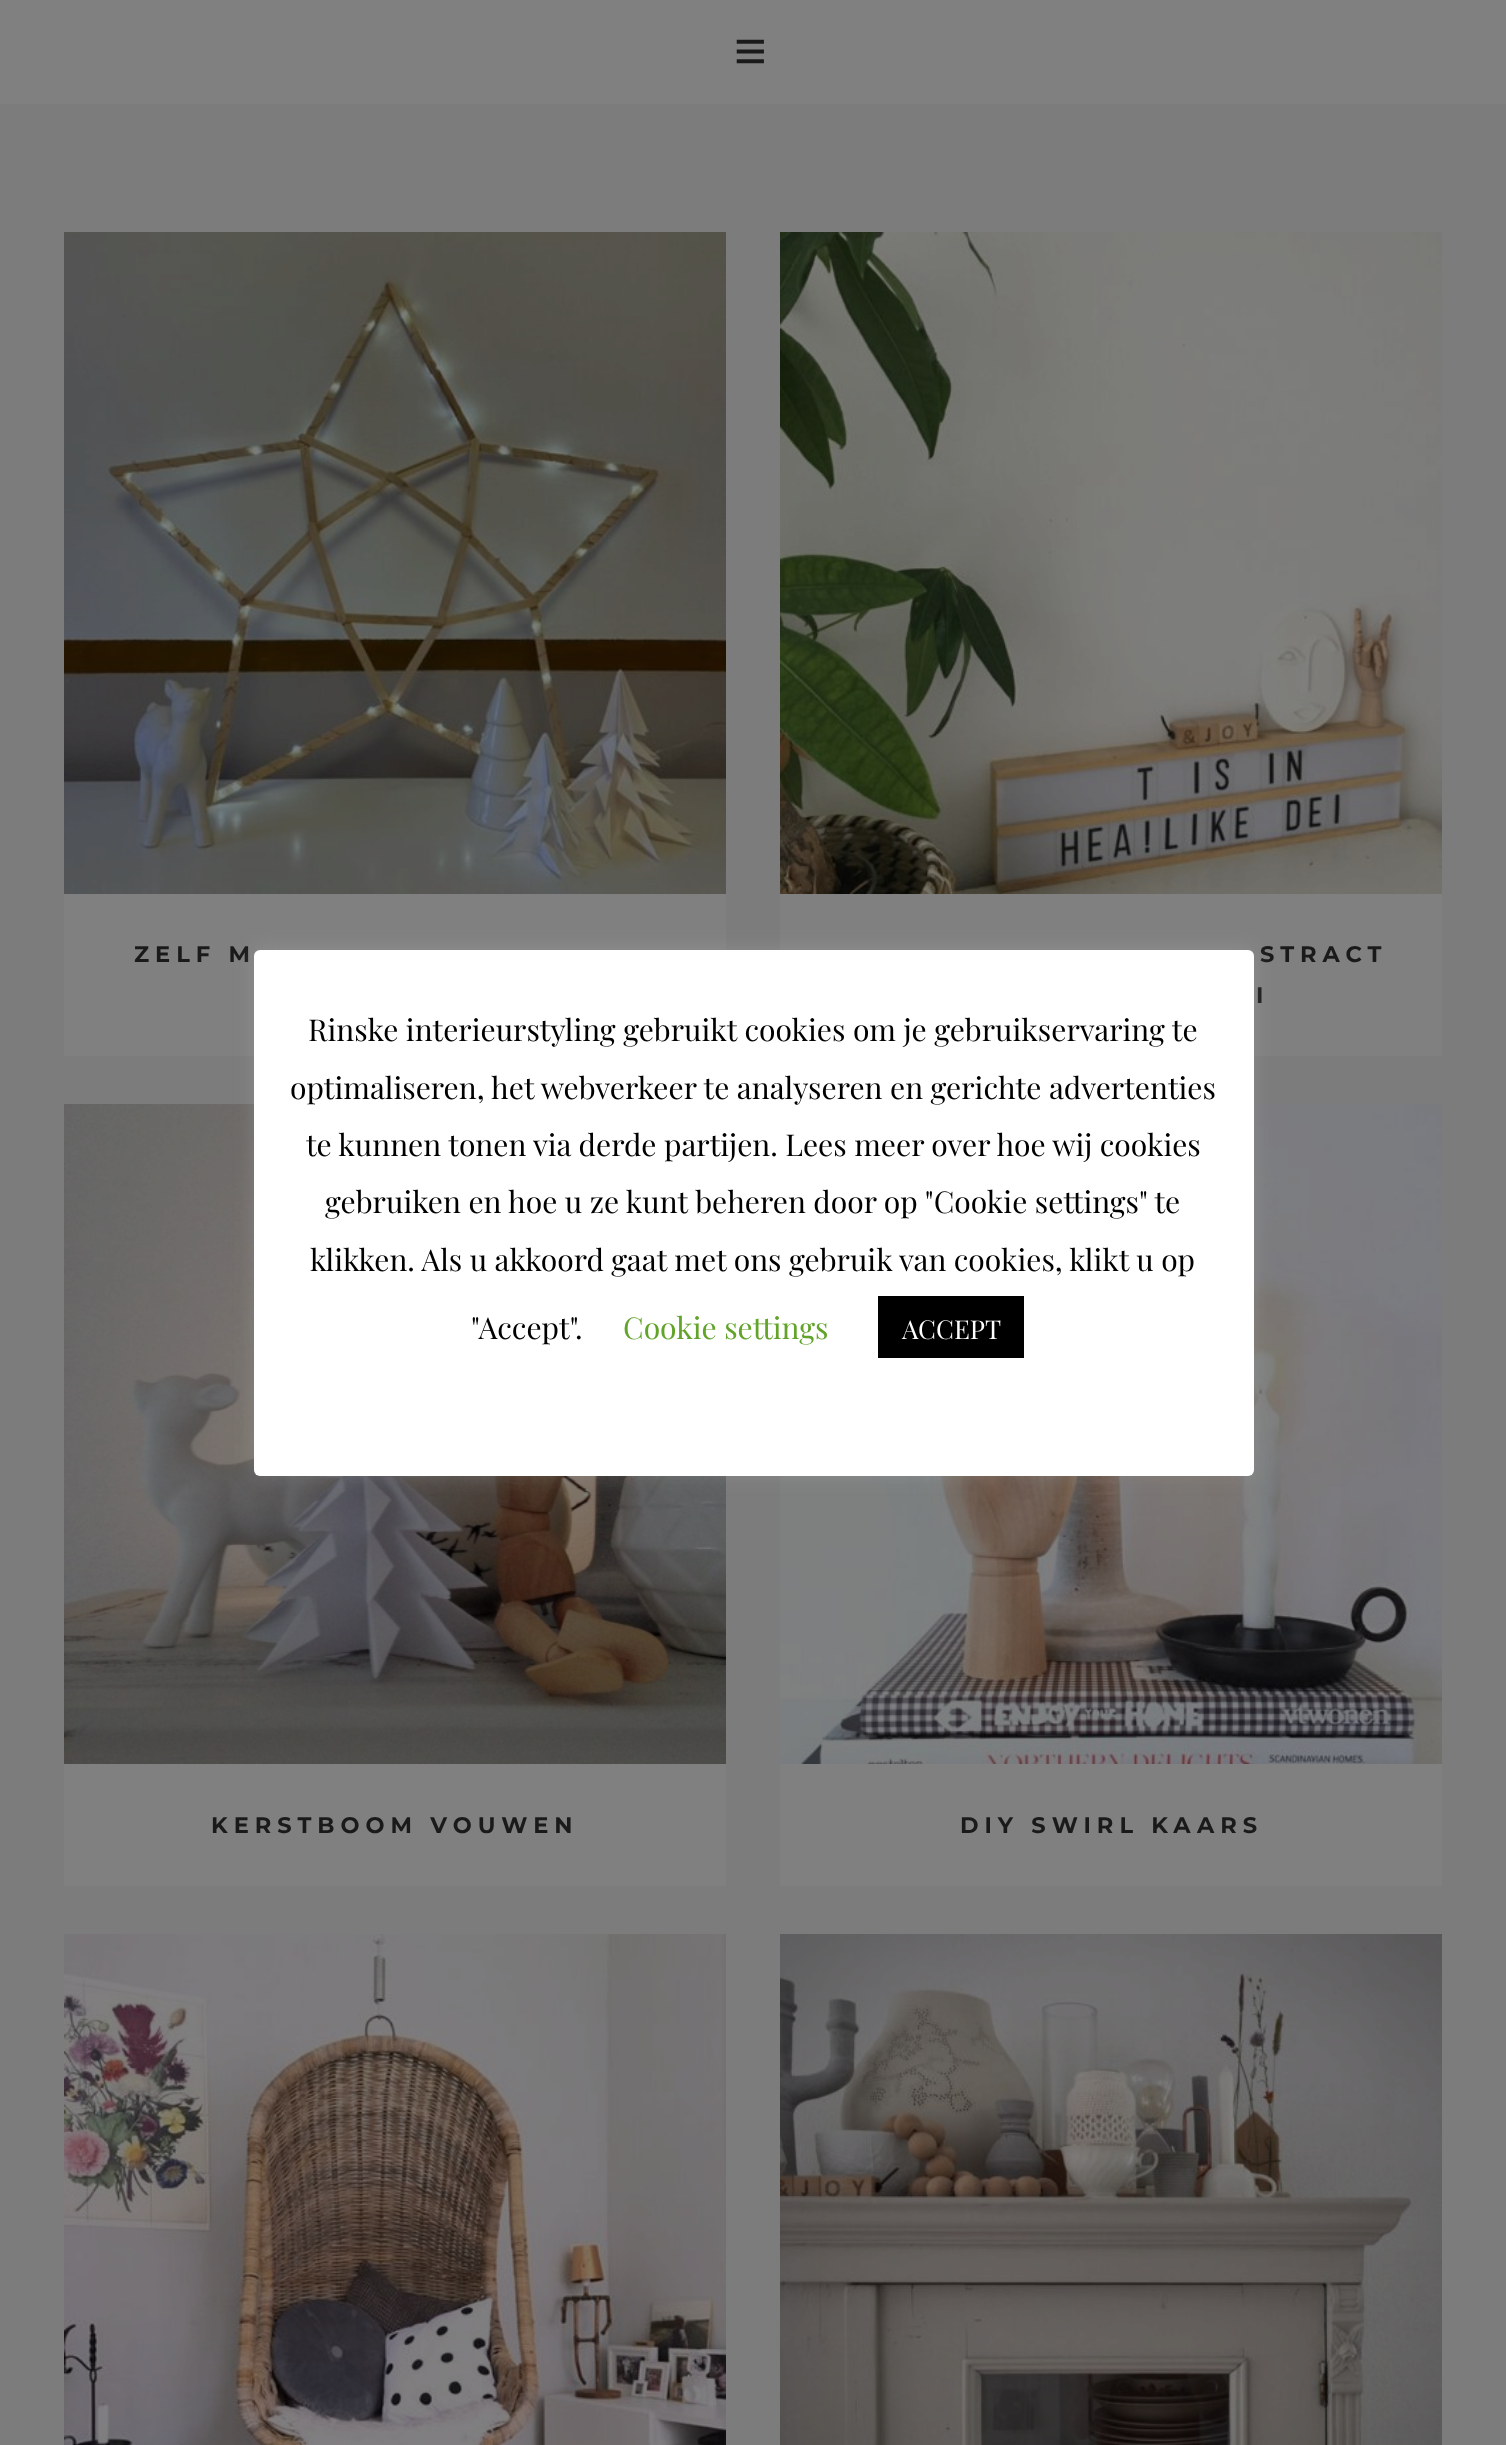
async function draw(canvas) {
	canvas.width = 1506;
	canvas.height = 2445;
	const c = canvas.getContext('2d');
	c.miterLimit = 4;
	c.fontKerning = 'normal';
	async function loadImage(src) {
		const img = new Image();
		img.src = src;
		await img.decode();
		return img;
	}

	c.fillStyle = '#7c7c7c';
	c.fillRect(0, 0, 1506, 2445);
	c.fillStyle = '#808080';
	c.fillRect(0, 0, 1506, 104);
	c.letterSpacing = '6px';
	c.font = '56px Liberation Sans';
	c.fillStyle = '#1a1a1a';
	c.fillText('≡', 734, 70);
	c.fillStyle = '#808080';
	c.fillRect(64, 894, 662, 162);
	c.drawImage(await loadImage('img1.png'), 64, 232, 662, 662);
	c.font = 'bold 22.5px Montserrat';
	c.fillStyle = '#1a1a1a';
	c.fillText('ZELF M', 134, 962);
	c.fillStyle = '#808080';
	c.fillRect(780, 894, 662, 162);
	c.drawImage(await loadImage('img2.png'), 780, 232, 662, 662);
	c.fillStyle = '#1a1a1a';
	c.fillText('STRACT', 1260, 962);
	c.fillText('I', 1256, 1003);
	c.fillStyle = '#808080';
	c.fillRect(64, 1764, 662, 122);
	c.drawImage(await loadImage('img3.png'), 64, 1104, 662, 660);
	c.fillStyle = '#1a1a1a';
	c.fillText('KERSTBOOM VOUWEN', 211, 1833);
	c.fillStyle = '#808080';
	c.fillRect(780, 1764, 662, 122);
	c.drawImage(await loadImage('img4.png'), 780, 1104, 662, 660);
	c.fillStyle = '#1a1a1a';
	c.fillText('DIY SWIRL KAARS', 960, 1833);
	c.drawImage(await loadImage('img5.png'), 64, 1934, 662, 511);
	c.drawImage(await loadImage('img6.png'), 780, 1934, 662, 511);
	c.fillStyle = '#acabab4d';
	c.filter = 'blur(10px)';
	c.beginPath();
	c.roundRect(254, 948, 1000, 526, 6);
	c.fill();
	c.filter = 'none';
	c.fillStyle = '#fff';
	c.beginPath();
	c.roundRect(254, 950, 1000, 526, 6);
	c.fill();
	c.letterSpacing = '0px';
	c.font = '30px Playfair Display';
	c.fillStyle = '#000';
	for (const [text, x, y] of [
		['Rinske interieurstyling gebruikt cookies om je gebruikservaring te', 308, 1041],
		['optimaliseren, het webverkeer te analyseren en gerichte advertenties', 290, 1099],
		['te kunnen tonen via derde partijen. Lees meer over hoe wij cookies', 306, 1156],
		['gebruiken en hoe u ze kunt beheren door op "Cookie settings" te', 325, 1213],
		['klikken. Als u akkoord gaat met ons gebruik van cookies, klikt u op', 310, 1271],
		['"Accept".', 471, 1339],
	]) {
		c.fillText(text, x, y);
	}
	c.fillStyle = '#62a329';
	c.fillText('Cookie settings', 623, 1339);
	c.fillStyle = '#000';
	c.fillRect(878, 1296, 146, 62);
	c.font = '26px Playfair Display';
	c.fillStyle = '#fff';
	c.fillText('ACCEPT', 902, 1339);
}

draw(document.querySelector('canvas'));
